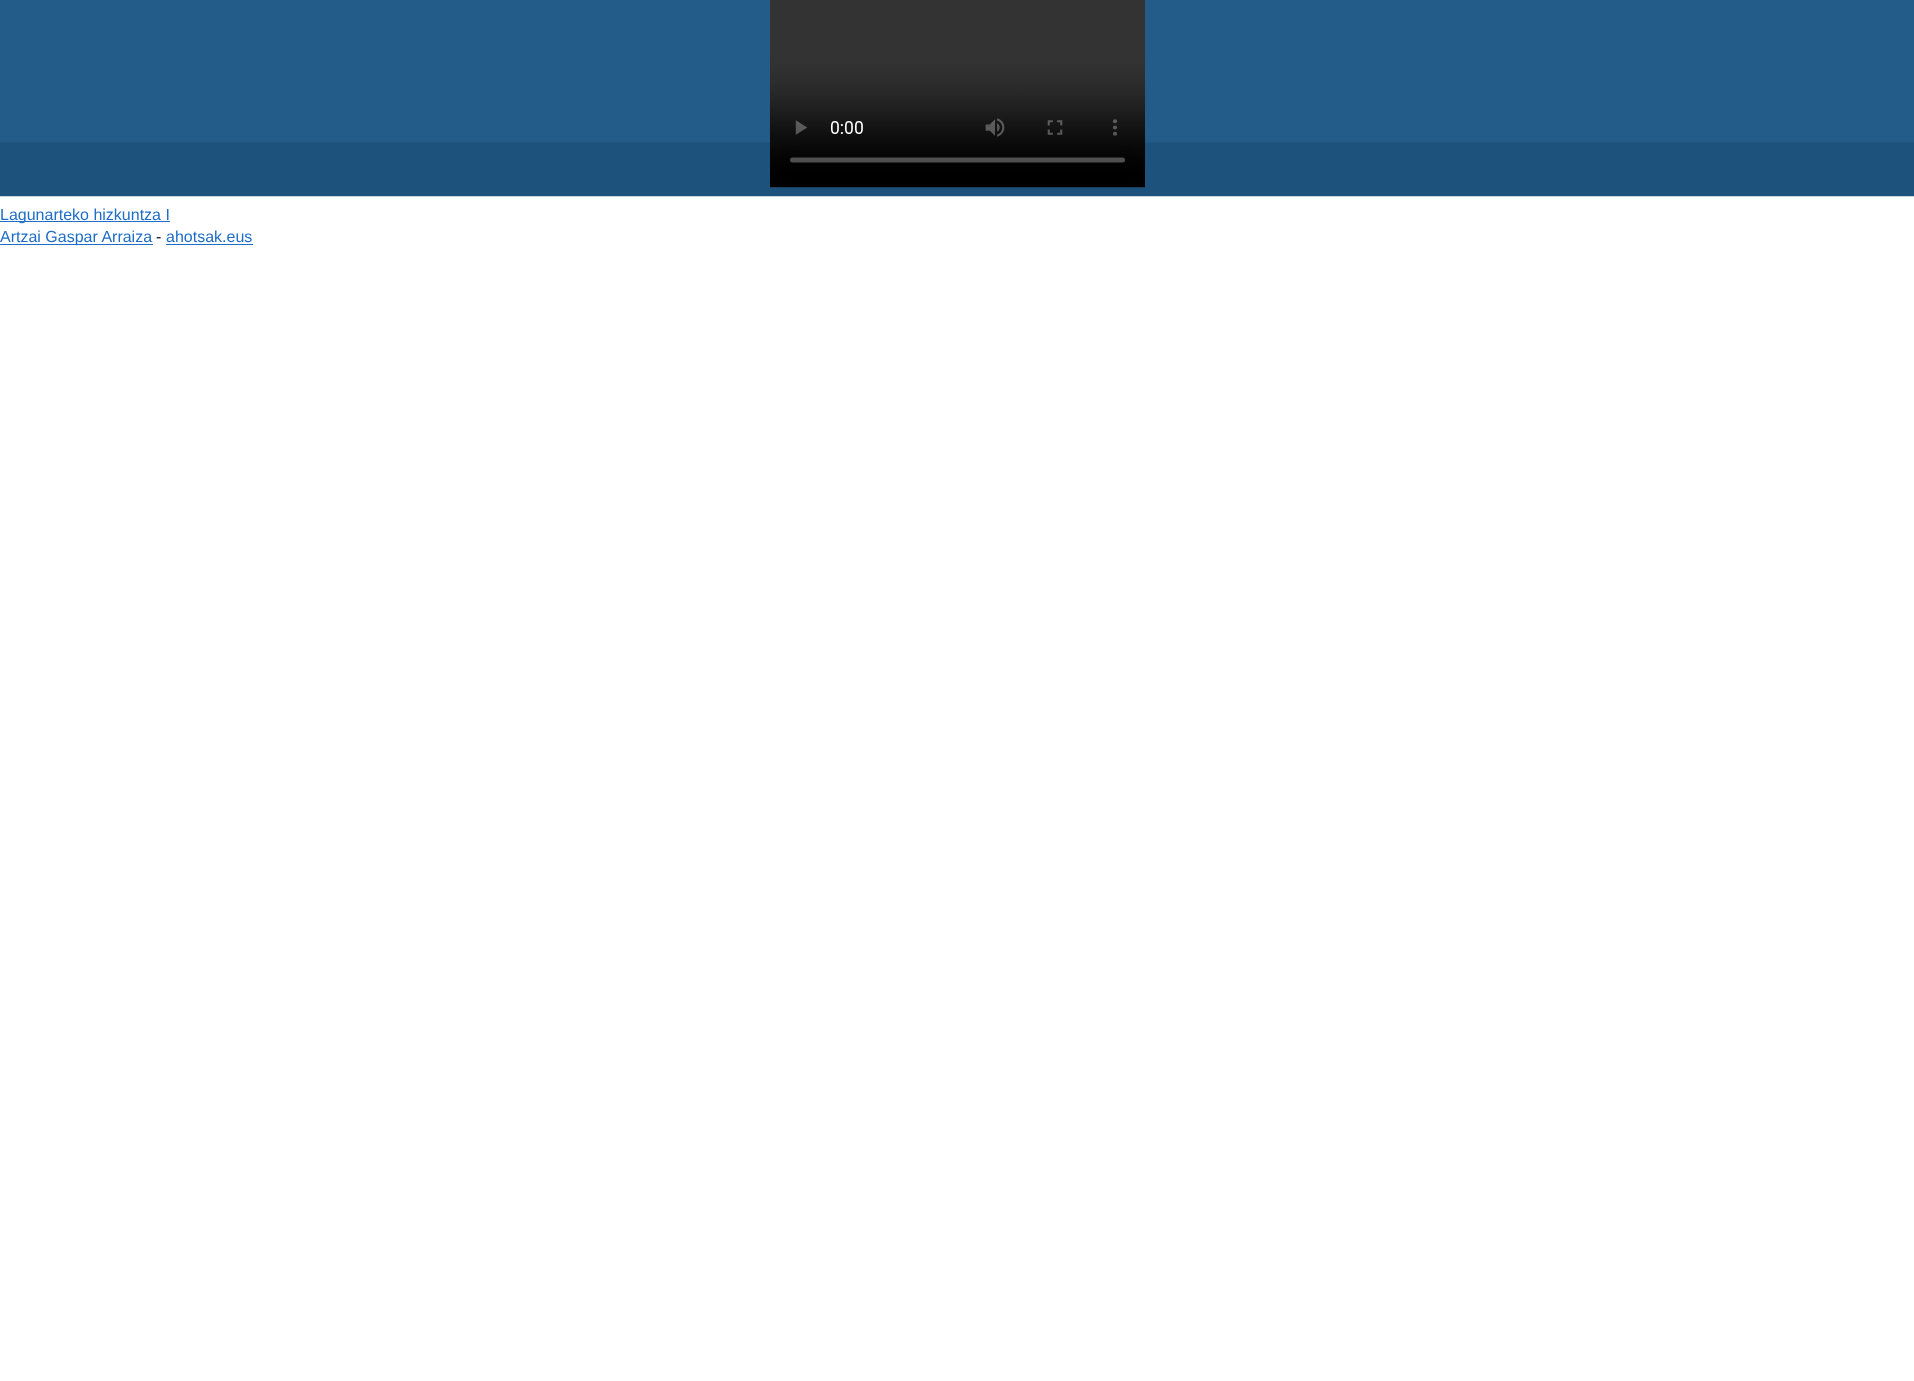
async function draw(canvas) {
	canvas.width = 1914;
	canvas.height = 1381;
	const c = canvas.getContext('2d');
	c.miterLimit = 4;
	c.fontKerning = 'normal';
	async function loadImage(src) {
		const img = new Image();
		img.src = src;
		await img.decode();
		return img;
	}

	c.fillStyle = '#fff';
	c.fillRect(0, 0, 1914, 1381);
	c.drawImage(await loadImage('img1.png'), 0, 0, 1914, 197);
	c.drawImage(await loadImage('img2.png'), 770, 0, 375, 188);
	c.fillStyle = '#1e6dc6';
	c.fillRect(0, 221, 170, 1);
	c.font = '16px Liberation Sans';
	c.fillText('Lagunarteko hizkuntza I', 0, 220);
	c.fillRect(0, 244, 153, 1);
	c.fillText('Artzai Gaspar Arraiza', 0, 242);
	c.fillStyle = '#000';
	c.fillText('-', 156, 242);
	c.fillStyle = '#1e6dc6';
	c.fillText('ahotsak.eus', 166, 242);
	c.fillRect(166, 244, 87, 1);
}

draw(document.querySelector('canvas'));
